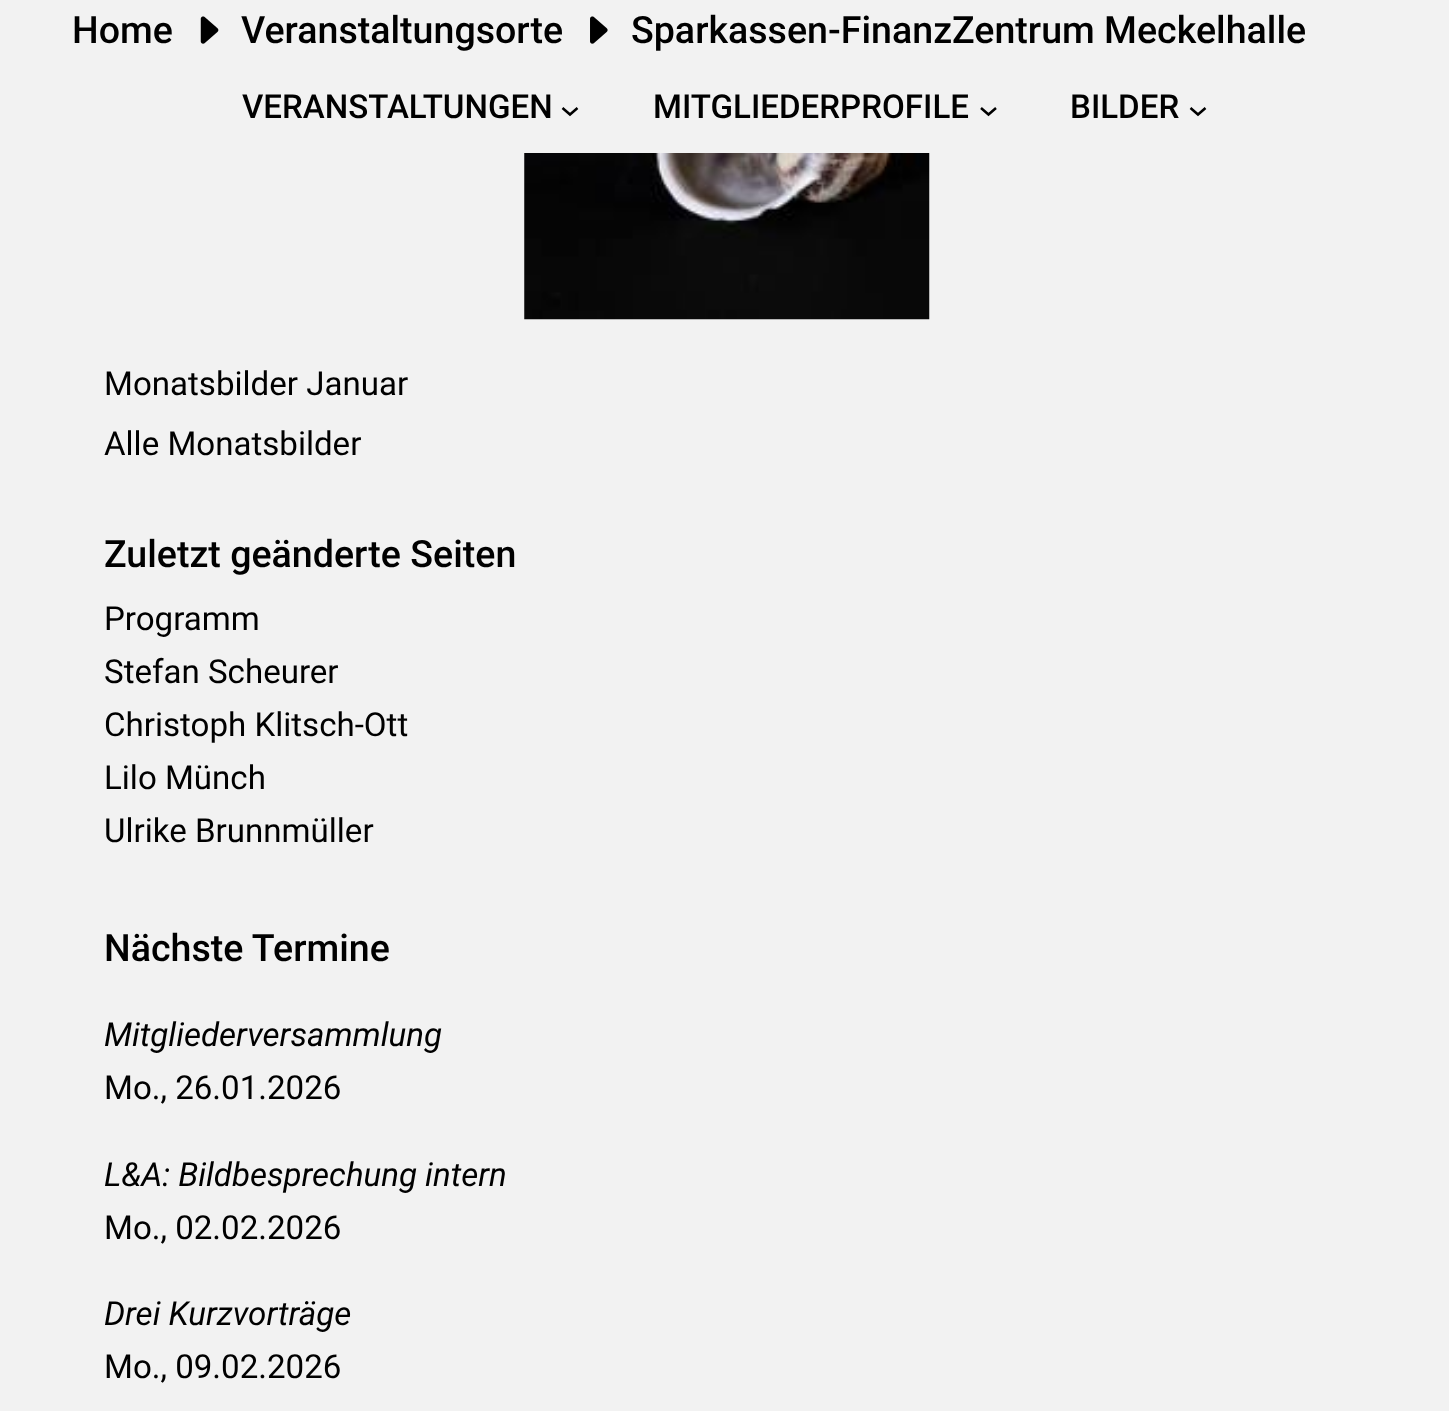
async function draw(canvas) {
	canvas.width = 1449;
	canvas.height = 1411;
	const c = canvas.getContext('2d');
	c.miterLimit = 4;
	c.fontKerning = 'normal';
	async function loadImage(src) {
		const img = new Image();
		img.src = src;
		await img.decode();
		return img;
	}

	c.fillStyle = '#f2f2f2';
	c.fillRect(0, 0, 1449, 1411);
	c.font = '500 37.6px Roboto';
	c.fillStyle = '#000';
	c.fillText('Home', 72, 43);
	c.drawImage(await loadImage('img1.png'), 200, 16, 19, 28);
	c.fillText('Veranstaltungsorte', 241, 43);
	c.drawImage(await loadImage('img2.png'), 590, 16, 18, 28);
	c.fillText('Sparkassen-FinanzZentrum Meckelhalle', 631, 43);
	c.font = '500 33.1px Roboto';
	c.fillText('VERANSTALTUNGEN', 242, 118);
	c.beginPath();
	c.moveTo(562.5, 108);
	c.lineTo(570, 114.5);
	c.lineTo(577.5, 108);
	c.strokeStyle = '#000';
	c.lineWidth = 2.5;
	c.stroke();
	c.fillText('MITGLIEDERPROFILE', 653, 118);
	c.beginPath();
	c.moveTo(981, 108);
	c.lineTo(988.5, 114.5);
	c.lineTo(996, 108);
	c.stroke();
	c.fillText('BILDER', 1070, 118);
	c.beginPath();
	c.moveTo(1190.5, 108);
	c.lineTo(1198, 114.5);
	c.lineTo(1205.5, 108);
	c.stroke();
	c.drawImage(await loadImage('img3.png'), 524, 153, 406, 167);
	c.font = '33.1px Roboto';
	c.fillText('Monatsbilder Januar', 104, 395);
	c.fillText('Alle Monatsbilder', 104, 455);
	c.font = '500 37.6px Roboto';
	c.fillText('Zuletzt geänderte Seiten', 104, 567);
	c.font = '33.1px Roboto';
	for (const [text, x, y] of [
		['Programm', 104, 630],
		['Stefan Scheurer', 104, 683],
		['Christoph Klitsch-Ott', 104, 736],
		['Lilo Münch', 104, 789],
		['Ulrike Brunnmüller', 104, 842],
	]) {
		c.fillText(text, x, y);
	}
	c.font = '500 37.6px Roboto';
	c.fillText('Nächste Termine', 104, 961);
	c.font = 'italic 33.1px Roboto';
	c.fillText('Mitgliederversammlung', 104, 1046);
	c.font = '33.1px Roboto';
	c.fillText('Mo., 26.01.2026', 104, 1099);
	c.font = 'italic 33.1px Roboto';
	c.fillText('L&A: Bildbesprechung intern', 104, 1186);
	c.font = '33.1px Roboto';
	c.fillText('Mo., 02.02.2026', 104, 1239);
	c.font = 'italic 33.1px Roboto';
	c.fillText('Drei Kurzvorträge', 104, 1325);
	c.font = '33.1px Roboto';
	c.fillText('Mo., 09.02.2026', 104, 1378);
}

draw(document.querySelector('canvas'));
